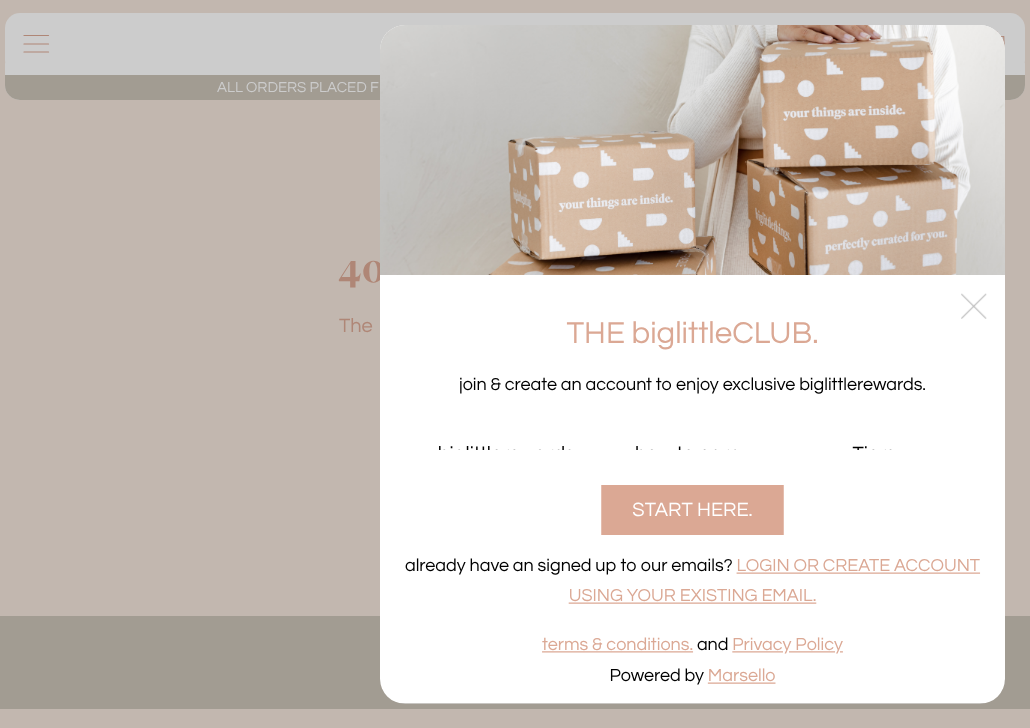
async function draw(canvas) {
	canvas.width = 1030;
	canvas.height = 728;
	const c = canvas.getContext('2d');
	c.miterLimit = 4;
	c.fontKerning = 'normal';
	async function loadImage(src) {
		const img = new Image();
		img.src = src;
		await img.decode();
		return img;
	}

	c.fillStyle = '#c2b7af';
	c.fillRect(0, 0, 1030, 728);
	c.fillStyle = '#ccc';
	c.beginPath();
	c.roundRect(5, 63, 1020, 37, [0, 0, 15, 15]);
	c.fill();
	c.beginPath();
	c.roundRect(5, 13, 1020, 62, 15);
	c.fill();
	c.beginPath();
	c.moveTo(24, 44);
	c.lineTo(48.5, 44);
	c.moveTo(24, 35.5);
	c.lineTo(48.5, 35.5);
	c.moveTo(24, 52);
	c.lineTo(48.5, 52);
	c.strokeStyle = '#af8676';
	c.lineWidth = 1.2;
	c.lineCap = 'round';
	c.lineJoin = 'round';
	c.stroke();
	c.drawImage(await loadImage('img1.png'), 995, 30, 10, 19);
	c.fillStyle = '#a29c92';
	c.beginPath();
	c.roundRect(5, 75, 1020, 25, [0, 0, 15, 15]);
	c.fill();
	c.font = '15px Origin';
	c.fillStyle = '#ccc';
	c.fillText('ALL ORDERS PLACED F', 217, 92);
	c.font = '500 40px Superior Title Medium';
	c.fillStyle = '#af8676';
	c.fillText('40', 338, 282);
	c.fillStyle = '#a29c92';
	c.fillRect(0, 616, 1030, 93);
	c.drawImage(await loadImage('img2.png'), 380, 25, 625, 679);
	c.font = '20px Origin';
	c.fillStyle = '#af8676';
	c.fillText('The', 339, 332);
}

draw(document.querySelector('canvas'));
